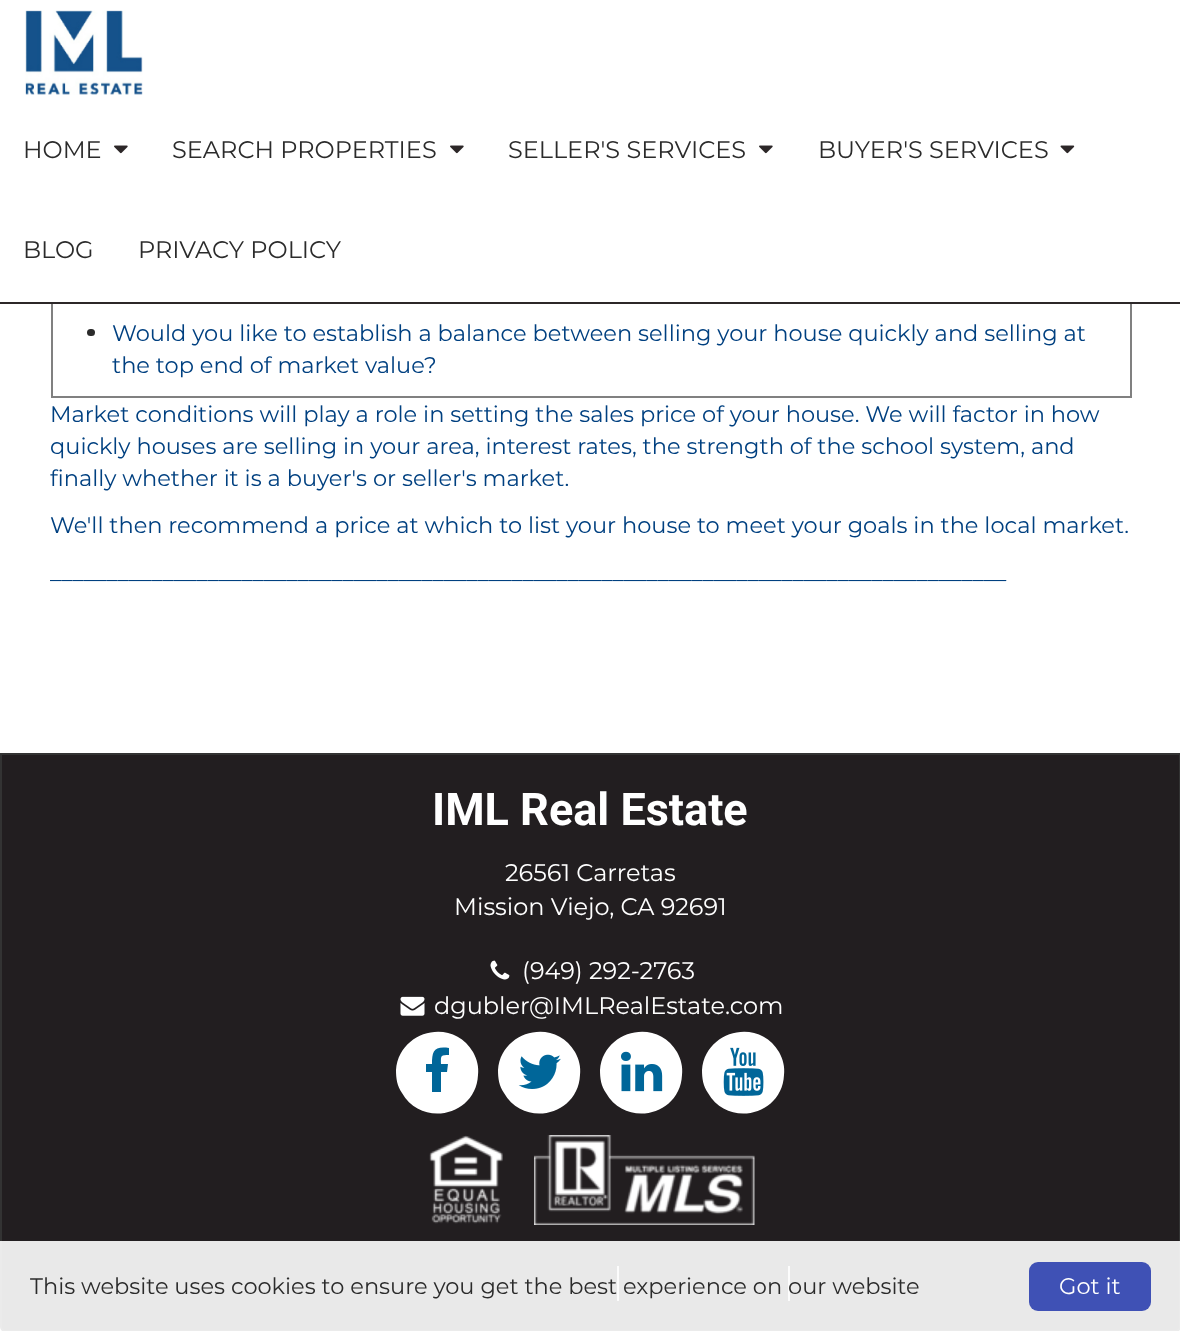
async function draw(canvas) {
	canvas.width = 1180;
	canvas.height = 1331;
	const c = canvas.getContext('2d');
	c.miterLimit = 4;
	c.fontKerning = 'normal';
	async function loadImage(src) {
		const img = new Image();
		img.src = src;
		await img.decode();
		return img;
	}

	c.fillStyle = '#fff';
	c.fillRect(0, 0, 1180, 1331);
	c.fillStyle = '#2c2728';
	c.fillRect(0, 302, 1180, 2);
	c.drawImage(await loadImage('img1.png'), 25, 10, 118, 85);
	c.font = '100 24px Montserrat';
	c.fillStyle = '#2b2b2b';
	c.fillText('HOME', 23, 158);
	c.drawImage(await loadImage('img2.png'), 114, 145, 14, 9);
	c.fillText('SEARCH PROPERTIES', 172, 158);
	c.drawImage(await loadImage('img2.png'), 450, 145, 14, 9);
	c.fillText('SELLER\'S SERVICES', 508, 158);
	c.drawImage(await loadImage('img2.png'), 759, 145, 14, 9);
	c.fillText('BUYER\'S SERVICES', 818, 158);
	c.drawImage(await loadImage('img3.png'), 1060, 145, 15, 9);
	c.fillText('BLOG', 23, 258);
	c.fillText('PRIVACY POLICY', 138, 258);
	for (const [x, y, w, h, color] of [
		[1130, 304, 2, 94, '#808080'],
		[51, 396, 1080, 2, '#808080'],
		[51, 304, 2, 94, '#808080'],
	]) {
		c.fillStyle = color;
		c.fillRect(x, y, w, h);
	}
	c.fillStyle = '#2b2b2b';
	c.beginPath();
	c.roundRect(87, 329, 8, 7, 3.5);
	c.fill();
	c.font = '100 22.5px Montserrat';
	c.fillStyle = '#004080';
	for (const [text, x, y] of [
		['Would you like to establish a balance between selling your house quickly and selling at', 112, 341],
		['the top end of market value?', 112, 373],
		['Market conditions will play a role in setting the sales price of your house. We will factor in how', 50, 422],
		['quickly houses are selling in your area, interest rates, the strength of the school system, and', 50, 454],
		['finally whether it is a buyer\'s or seller\'s market.', 50, 486],
		['We\'ll then recommend a price at which to list your house to meet your goals in the local market.', 50, 533],
		['_____________________________________________________________________________________', 50, 580],
	]) {
		c.fillText(text, x, y);
	}
	c.fillStyle = '#221e20';
	c.beginPath();
	c.moveTo(1, 754);
	c.lineTo(1180, 754);
	c.lineTo(1180, 1327);
	c.bezierCurveTo(1180, 1329, 1178, 1331, 1176, 1331);
	c.lineTo(5, 1331);
	c.bezierCurveTo(3, 1331, 1, 1329, 1, 1327);
	c.closePath();
	c.fill();
	c.strokeStyle = '#333';
	c.lineWidth = 2;
	c.stroke();
	c.font = 'bold 45px Roboto';
	c.fillStyle = '#fff';
	c.fillText('IML Real Estate', 432, 825);
	c.font = '100 24px Montserrat';
	c.fillText('26561 Carretas', 505, 881);
	c.fillText('Mission Viejo, CA 92691', 454, 915);
	c.drawImage(await loadImage('img4.png'), 490, 960, 20, 20);
	c.fillText('(949) 292-2763', 522, 979);
	c.drawImage(await loadImage('img5.png'), 400, 996, 25, 20);
	c.fillText('dgubler@IMLRealEstate.com', 434, 1014);
	c.beginPath();
	c.moveTo(473, 1052);
	c.bezierCurveTo(477, 1059, 479, 1067, 478, 1075);
	c.bezierCurveTo(476, 1116, 422, 1128, 402, 1093);
	c.bezierCurveTo(397, 1086, 396, 1078, 396, 1070);
	c.bezierCurveTo(399, 1030, 453, 1017, 473, 1052);
	c.closePath();
	c.fill();
	c.fillStyle = '#069';
	c.beginPath();
	c.moveTo(449, 1048);
	c.lineTo(449, 1055);
	c.bezierCurveTo(440, 1055, 441, 1056, 441, 1064);
	c.lineTo(448, 1064);
	c.lineTo(447, 1072);
	c.lineTo(441, 1072);
	c.lineTo(441, 1092);
	c.lineTo(432, 1092);
	c.lineTo(432, 1072);
	c.lineTo(426, 1072);
	c.lineTo(426, 1064);
	c.lineTo(432, 1064);
	c.bezierCurveTo(432, 1051, 434, 1046, 449, 1048);
	c.closePath();
	c.fill();
	c.fillStyle = '#fff';
	c.beginPath();
	c.moveTo(575, 1052);
	c.bezierCurveTo(579, 1059, 581, 1067, 580, 1075);
	c.bezierCurveTo(578, 1116, 524, 1128, 504, 1093);
	c.bezierCurveTo(499, 1086, 498, 1078, 498, 1070);
	c.bezierCurveTo(501, 1030, 555, 1017, 575, 1052);
	c.closePath();
	c.fill();
	c.drawImage(await loadImage('img6.png'), 518, 1054, 43, 35);
	c.beginPath();
	c.moveTo(677, 1052);
	c.bezierCurveTo(681, 1059, 683, 1067, 682, 1075);
	c.bezierCurveTo(680, 1116, 626, 1128, 606, 1093);
	c.bezierCurveTo(601, 1086, 600, 1078, 600, 1070);
	c.bezierCurveTo(603, 1030, 657, 1017, 677, 1052);
	c.closePath();
	c.fill();
	c.drawImage(await loadImage('img7.png'), 621, 1051, 42, 41);
	c.beginPath();
	c.moveTo(779, 1052);
	c.bezierCurveTo(783, 1059, 785, 1067, 784, 1075);
	c.bezierCurveTo(782, 1116, 728, 1128, 708, 1093);
	c.bezierCurveTo(703, 1086, 702, 1078, 702, 1070);
	c.bezierCurveTo(705, 1030, 759, 1017, 779, 1052);
	c.closePath();
	c.fill();
	c.drawImage(await loadImage('img8.png'), 723, 1047, 41, 49);
	c.drawImage(await loadImage('img9.png'), 429, 1135, 74, 89);
	c.drawImage(await loadImage('img10.png'), 534, 1135, 221, 90);
	for (const [x, y, w, h, color] of [
		[617, 1266, 2, 35, '#ddd'],
		[788, 1266, 2, 35, '#ddd'],
		[0, 1241, 1180, 90, '#ffffffe6'],
	]) {
		c.fillStyle = color;
		c.fillRect(x, y, w, h);
	}
	c.font = '100 22.5px Montserrat';
	c.fillStyle = '#2b2b2b';
	c.fillText('This website uses cookies to ensure you get the best experience on our website', 30, 1294);
	c.fillStyle = '#3f51b5';
	c.beginPath();
	c.roundRect(1029, 1262, 122, 49, 9);
	c.fill();
	c.fillStyle = '#fff';
	c.fillText('Got it', 1059, 1294);
}

draw(document.querySelector('canvas'));
